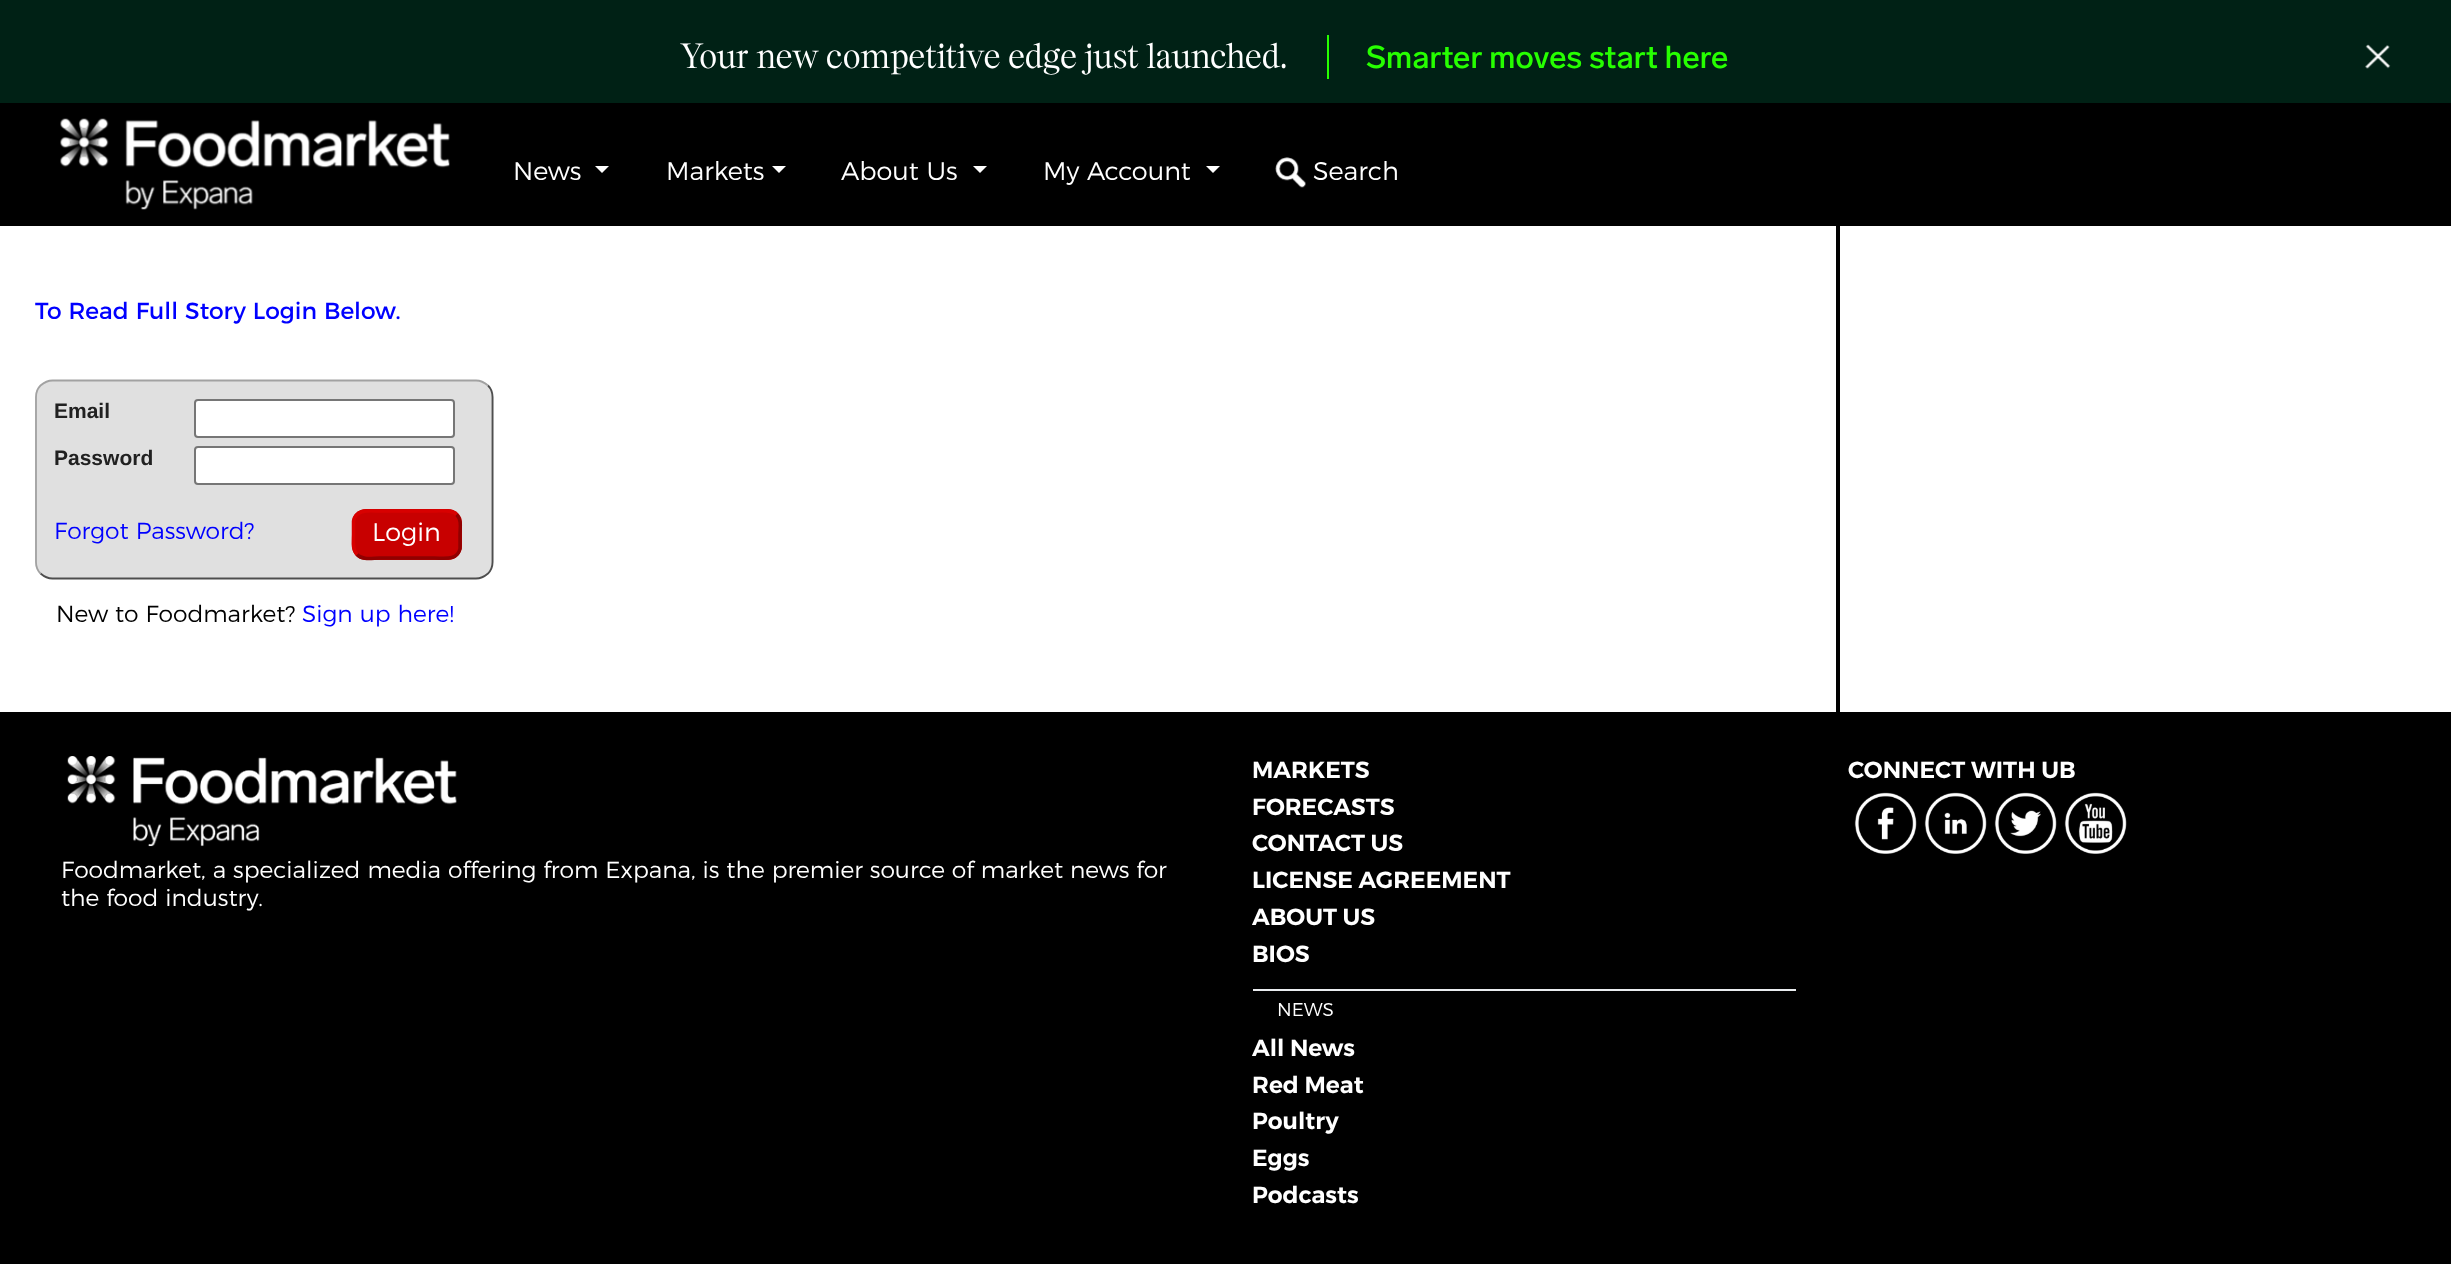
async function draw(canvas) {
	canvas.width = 2451;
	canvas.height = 1264;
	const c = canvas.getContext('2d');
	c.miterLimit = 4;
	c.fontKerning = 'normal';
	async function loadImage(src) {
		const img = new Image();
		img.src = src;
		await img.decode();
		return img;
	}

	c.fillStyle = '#000';
	c.fillRect(0, 0, 2451, 1264);
	c.fillStyle = '#002115';
	c.fillRect(0, 0, 2451, 103);
	c.font = '300 35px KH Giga';
	c.fillStyle = '#fff';
	c.fillText('Your new competitive edge just launched.', 680, 68);
	c.fillStyle = '#26ff00';
	c.fillRect(1327, 35, 2, 44);
	c.font = '500 31.5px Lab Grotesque';
	c.fillText('Smarter moves start here', 1366, 68);
	c.drawImage(await loadImage('img1.png'), 2365, 44, 26, 25);
	c.drawImage(await loadImage('img2.png'), 60, 118, 390, 92);
	c.font = '300 25.5px Montserrat';
	c.fillStyle = '#fff';
	c.fillText('News', 513, 180);
	c.beginPath();
	c.moveTo(595, 166);
	c.lineTo(609, 166);
	c.lineTo(602, 173);
	c.closePath();
	c.fill();
	c.fillText('Markets', 666, 180);
	c.beginPath();
	c.moveTo(772, 166);
	c.lineTo(786, 166);
	c.lineTo(779, 173);
	c.closePath();
	c.fill();
	c.fillText('About Us', 841, 180);
	c.beginPath();
	c.moveTo(973, 166);
	c.lineTo(987, 166);
	c.lineTo(980, 173);
	c.closePath();
	c.fill();
	c.fillText('My Account', 1043, 180);
	c.beginPath();
	c.moveTo(1206, 166);
	c.lineTo(1220, 166);
	c.lineTo(1213, 173);
	c.closePath();
	c.fill();
	c.drawImage(await loadImage('img3.png'), 1275, 157, 31, 31);
	c.fillText('Search', 1313, 180);
	c.fillRect(0, 226, 2451, 486);
	c.fillStyle = '#000';
	c.fillRect(1836, 226, 4, 486);
	c.font = '23.35px Montserrat';
	c.fillStyle = '#00f';
	c.fillText('To Read Full Story Login Below.', 35, 319);
	c.fillStyle = '#e0e0e0';
	c.beginPath();
	c.roundRect(35, 380, 459, 199, 18);
	c.fill();
	c.beginPath();
	c.moveTo(488, 385.5);
	c.bezierCurveTo(491, 388.5, 492.5, 393, 492.5, 397);
	c.lineTo(492.5, 562);
	c.bezierCurveTo(492.5, 566, 491, 570.5, 488, 573.5);
	c.bezierCurveTo(484.5, 576.5, 480.5, 578.5, 476, 578.5);
	c.lineTo(52.5, 578.5);
	c.bezierCurveTo(48, 578.5, 44, 576.5, 40.5, 573.5);
	c.strokeStyle = '#4e4e4e';
	c.lineWidth = 1.8;
	c.stroke();
	c.beginPath();
	c.moveTo(40.5, 573.5);
	c.bezierCurveTo(37.5, 570.5, 36, 566, 36, 562);
	c.lineTo(36, 397);
	c.bezierCurveTo(36, 393, 37.5, 388.5, 40.5, 385.5);
	c.bezierCurveTo(44, 382.5, 48, 380.5, 52.5, 380.5);
	c.lineTo(476, 380.5);
	c.bezierCurveTo(480.5, 380.5, 484.5, 382.5, 488, 385.5);
	c.strokeStyle = '#a2a2a2';
	c.stroke();
	c.font = 'bold 21px Liberation Sans';
	c.fillStyle = '#212121';
	c.fillText('Email', 54, 418);
	c.fillStyle = '#fff';
	c.beginPath();
	c.roundRect(195, 400, 259, 37, 3);
	c.fill();
	c.strokeStyle = '#767676';
	c.lineWidth = 2;
	c.stroke();
	c.fillStyle = '#212121';
	c.fillText('Password', 54, 465);
	c.fillStyle = '#fff';
	c.beginPath();
	c.roundRect(195, 447, 259, 37, 3);
	c.fill();
	c.stroke();
	c.font = '300 23.35px Montserrat';
	c.fillStyle = '#00f';
	c.fillText('Forgot Password?', 54, 539);
	c.fillStyle = '#c80000';
	c.beginPath();
	c.roundRect(352, 509, 110, 51, 14);
	c.fill();
	c.beginPath();
	c.moveTo(456.5, 514.5);
	c.bezierCurveTo(462, 520, 460, 528, 460, 534.5);
	c.lineTo(460, 548.5);
	c.bezierCurveTo(457.5, 561, 443.5, 558, 434.5, 558);
	c.lineTo(379.5, 558);
	c.bezierCurveTo(372.5, 558, 362.5, 560.5, 357, 554.5);
	c.strokeStyle = '#900000';
	c.lineWidth = 3.5;
	c.stroke();
	c.beginPath();
	c.moveTo(357, 554.5);
	c.bezierCurveTo(352, 549.5, 353.5, 541, 353.5, 534.5);
	c.lineTo(353.5, 521);
	c.bezierCurveTo(356, 508.5, 370, 511, 379.5, 511);
	c.lineTo(434.5, 511);
	c.bezierCurveTo(441, 511, 451, 509, 456.5, 514.5);
	c.strokeStyle = '#d80000';
	c.stroke();
	c.font = '300 25.5px Montserrat';
	c.fillStyle = '#fff';
	c.fillText('Login', 372, 541);
	c.font = '300 23.35px Montserrat';
	c.fillStyle = '#000';
	c.fillText('New to Foodmarket?', 56, 622);
	c.fillStyle = '#00f';
	c.fillText('Sign up here!', 302, 622);
	c.font = '600 23.35px Montserrat';
	c.fillStyle = '#fff';
	for (const [text, x, y] of [
		['MARKETS', 1252, 778],
		['FORECASTS', 1252, 815],
		['CONTACT US', 1252, 851],
		['LICENSE AGREEMENT', 1252, 888],
		['ABOUT US', 1252, 925],
		['BIOS', 1252, 962],
	]) {
		c.fillText(text, x, y);
	}
	c.fillStyle = '#e9ecef';
	c.fillRect(1253, 989, 543, 2);
	c.font = '300 18.5px Montserrat';
	c.fillStyle = '#fff';
	c.fillText('NEWS', 1277, 1016);
	c.font = '600 23.35px Montserrat';
	for (const [text, x, y] of [
		['All News', 1252, 1056],
		['Red Meat', 1252, 1093],
		['Poultry', 1252, 1129],
		['Eggs', 1252, 1166],
		['Podcasts', 1252, 1203],
		['CONNECT WITH UB', 1848, 778],
	]) {
		c.fillText(text, x, y);
	}
	c.drawImage(await loadImage('img4.png'), 1854, 792, 63, 62);
	c.drawImage(await loadImage('img5.png'), 1924, 792, 63, 62);
	c.drawImage(await loadImage('img6.png'), 1994, 792, 63, 62);
	c.drawImage(await loadImage('img7.png'), 2064, 792, 63, 62);
	c.drawImage(await loadImage('img8.png'), 67, 756, 390, 91);
	c.font = '300 23.35px Montserrat';
	c.fillText('Foodmarket, a specialized media offering from Expana, is the premier source of market news for', 61, 878);
	c.fillText('the food industry.', 61, 906);
}

draw(document.querySelector('canvas'));
